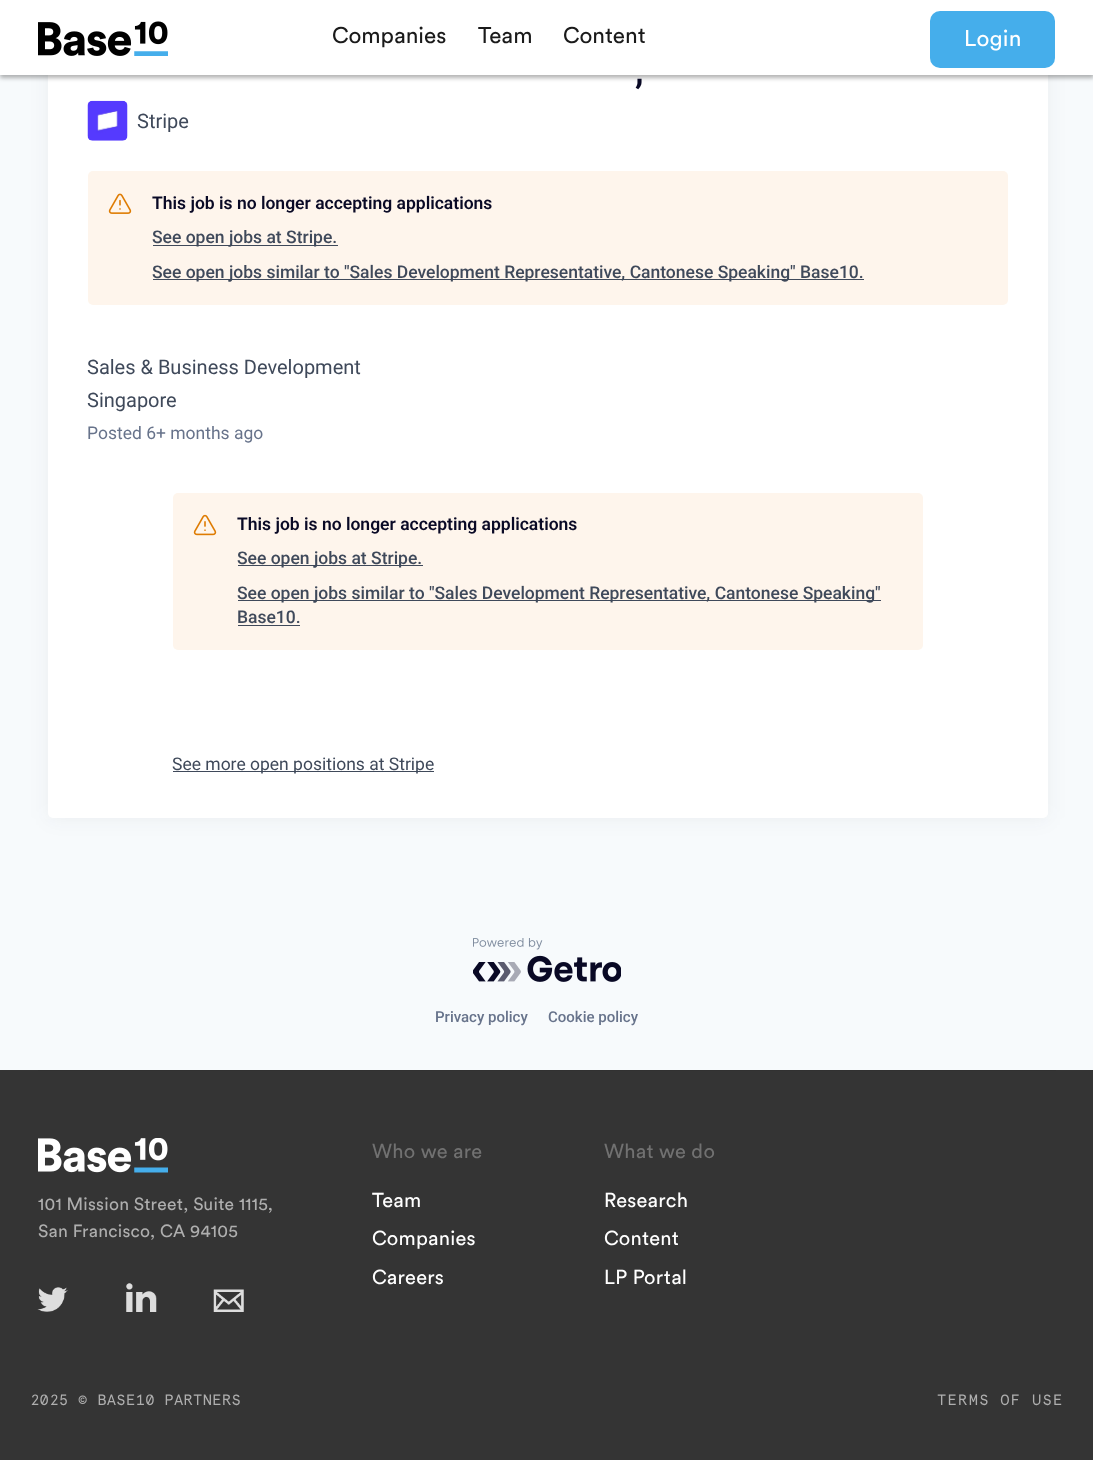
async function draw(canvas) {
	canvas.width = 1093;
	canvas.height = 1460;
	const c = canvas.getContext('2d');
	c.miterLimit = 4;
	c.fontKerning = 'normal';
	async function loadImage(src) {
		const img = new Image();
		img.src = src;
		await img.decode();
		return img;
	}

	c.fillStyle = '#f7fafc';
	c.fillRect(0, 0, 1093, 1460);
	c.fillStyle = '#1b24320f';
	c.filter = 'blur(10px)';
	c.beginPath();
	c.roundRect(48, 11, 1000, 808, 5);
	c.fill();
	c.filter = 'none';
	c.fillStyle = '#fff';
	c.beginPath();
	c.roundRect(48, 10, 1000, 808, 5);
	c.fill();
	c.fillStyle = '#0000004d';
	c.filter = 'blur(2px)';
	c.beginPath();
	c.rect(0, 3, 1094, 75);
	c.fill();
	c.filter = 'none';
	c.fillStyle = '#fff';
	c.fillRect(0, 0, 1093, 75);
	c.drawImage(await loadImage('img1.png'), 38, 21, 130, 35);
	c.font = '22.5px Circular';
	c.fillStyle = '#1a1a1a';
	for (const [text, x, y] of [
		['Companies', 332, 43],
		['Team', 478, 43],
		['Content', 563, 43],
	]) {
		c.fillText(text, x, y);
	}
	c.fillStyle = '#45aeeb';
	c.beginPath();
	c.roundRect(930, 11, 125, 57, 10);
	c.fill();
	c.letterSpacing = '0.25px';
	c.fillStyle = '#fff';
	c.fillText('Login', 964, 46);
	c.letterSpacing = '0px';
	c.font = 'bold 35px Roboto';
	c.fillStyle = '#090925';
	c.fillText(',', 635, 83);
	c.drawImage(await loadImage('img2.png'), 87, 100, 41, 41);
	c.font = '20px Roboto';
	c.fillStyle = '#3f495a';
	c.fillText('Stripe', 137, 128);
	c.fillStyle = '#fef5ec';
	c.beginPath();
	c.roundRect(88, 171, 920, 134, 5);
	c.fill();
	c.drawImage(await loadImage('img3.png'), 108, 193, 24, 21);
	c.font = '600 17.5px Roboto';
	c.fillStyle = '#090925';
	c.fillText('This job is no longer accepting applications', 152, 209);
	c.fillStyle = '#3f495a';
	c.fillRect(153, 245, 185, 1);
	c.font = '500 17.5px Roboto';
	c.fillText('See open jobs at Stripe.', 152, 243);
	c.fillRect(153, 279, 711, 1);
	c.fillText('See open jobs similar to "Sales Development Representative, Cantonese Speaking" Base10.', 152, 278);
	c.font = '20px Roboto';
	c.fillText('Sales & Business Development', 87, 374);
	c.fillText('Singapore', 87, 407);
	c.font = '17.5px Roboto';
	c.fillStyle = '#67738b';
	c.fillText('Posted 6+ months ago', 87, 439);
	c.fillStyle = '#fef5ec';
	c.beginPath();
	c.roundRect(173, 493, 750, 157, 5);
	c.fill();
	c.drawImage(await loadImage('img4.png'), 193, 514, 24, 22);
	c.font = '600 17.5px Roboto';
	c.fillStyle = '#090925';
	c.fillText('This job is no longer accepting applications', 237, 530);
	c.fillStyle = '#3f495a';
	c.fillRect(238, 565, 185, 1);
	c.font = '500 17.5px Roboto';
	c.fillText('See open jobs at Stripe.', 237, 564);
	c.fillRect(238, 600, 643, 1);
	c.fillText('See open jobs similar to "Sales Development Representative, Cantonese Speaking"', 237, 599);
	c.fillText('Base10.', 237, 623);
	c.fillRect(238, 625, 62, 1);
	c.fillRect(173, 771, 261, 1);
	c.font = '17.5px Roboto';
	c.fillText('See more open positions at Stripe', 172, 770);
	c.drawImage(await loadImage('img5.png'), 473, 938, 148, 44);
	c.font = '500 15px Roboto';
	c.fillStyle = '#67738b';
	c.fillText('Privacy policy', 435, 1022);
	c.fillText('Cookie policy', 548, 1022);
	c.fillStyle = '#343434';
	c.fillRect(0, 1070, 1093, 390);
	c.fillStyle = '#313131';
	c.fillRect(38, 1070, 1018, 1);
	c.drawImage(await loadImage('img6.png'), 38, 1138, 130, 35);
	c.letterSpacing = '0.25px';
	c.font = '17.5px Circular';
	c.fillStyle = '#aeaeae';
	c.fillText('101 Mission Street, Suite 1115,', 38, 1210);
	c.fillText('San Francisco, CA 94105', 38, 1237);
	c.drawImage(await loadImage('img7.png'), 37, 1287, 31, 25);
	c.drawImage(await loadImage('img8.png'), 126, 1283, 31, 29);
	c.drawImage(await loadImage('img9.png'), 213, 1289, 31, 23);
	c.font = '20px Circular';
	c.fillStyle = '#717171';
	c.fillText('Who we are', 372, 1158);
	c.fillStyle = '#fff';
	for (const [text, x, y] of [
		['Team', 372, 1207],
		['Companies', 372, 1245],
		['Careers', 372, 1284],
	]) {
		c.fillText(text, x, y);
	}
	c.fillStyle = '#717171';
	c.fillText('What we do', 604, 1158);
	c.fillStyle = '#fff';
	for (const [text, x, y] of [
		['Research', 604, 1207],
		['Content', 604, 1245],
		['LP Portal', 604, 1284],
	]) {
		c.fillText(text, x, y);
	}
	c.letterSpacing = '0.3px';
	c.font = '15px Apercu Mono';
	c.fillStyle = '#aeaeae';
	c.fillText('2025 © BASE10 PARTNERS', 30, 1405);
	c.letterSpacing = '1.25px';
	c.fillText('TERMS OF USE', 937, 1405);
}

draw(document.querySelector('canvas'));
